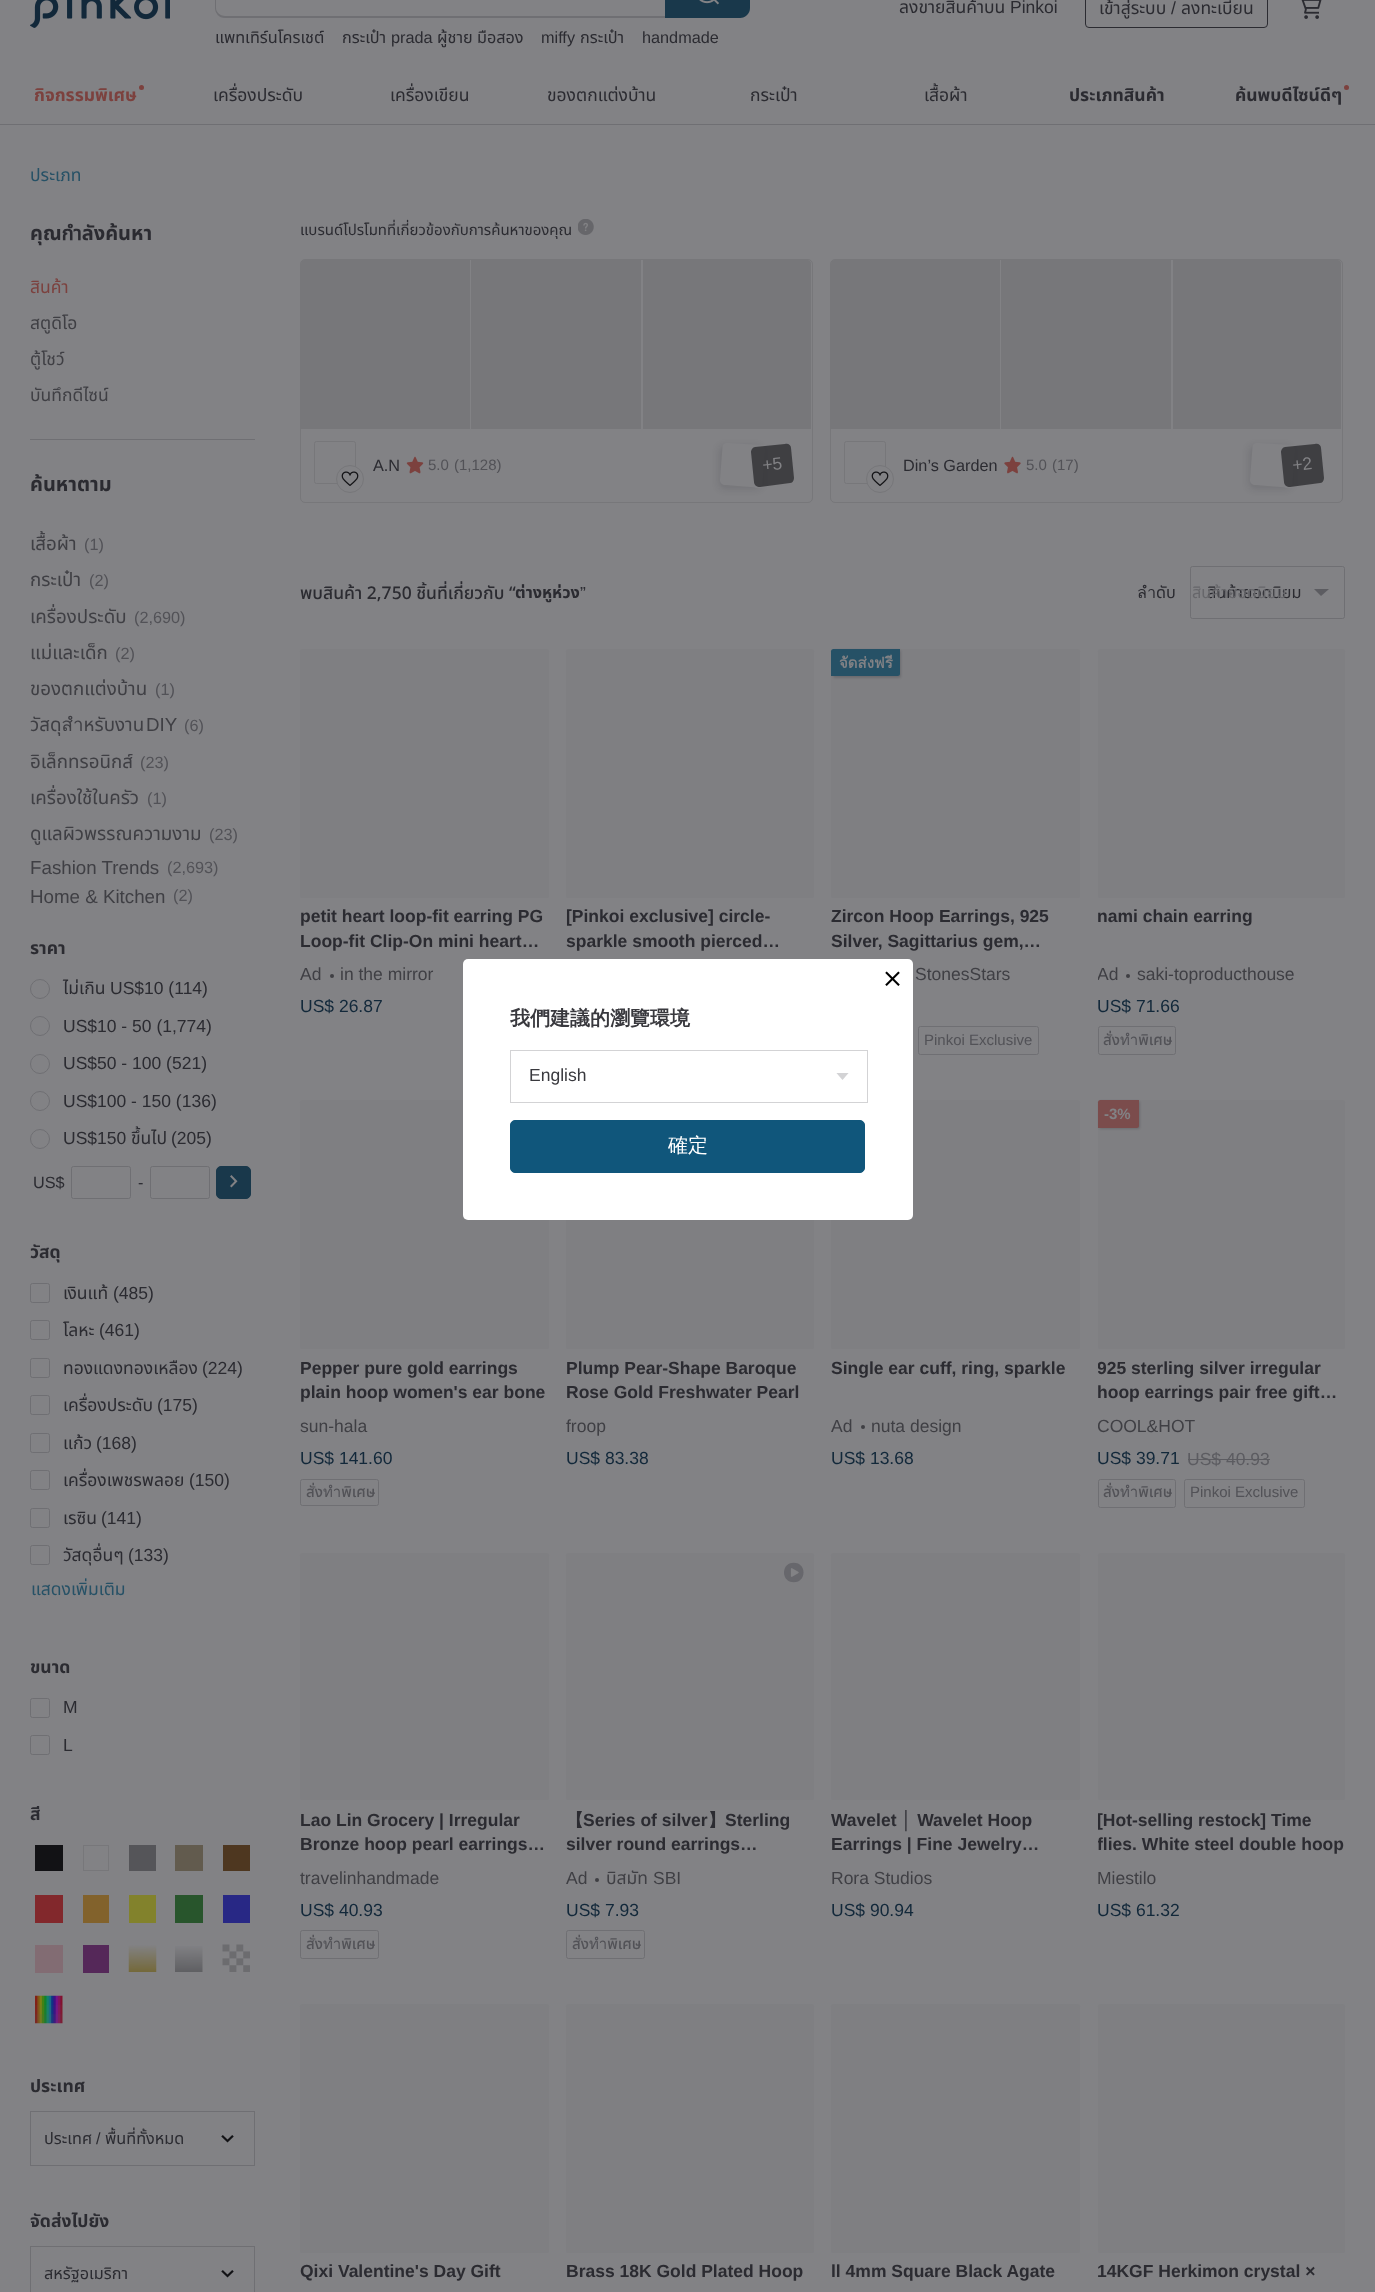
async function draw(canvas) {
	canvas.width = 1375;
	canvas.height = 2292;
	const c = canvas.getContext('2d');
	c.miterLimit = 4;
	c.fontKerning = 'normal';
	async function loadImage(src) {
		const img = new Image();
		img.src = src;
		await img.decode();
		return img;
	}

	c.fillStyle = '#828285';
	c.fillRect(0, 0, 1375, 2292);
	c.drawImage(await loadImage('img1.png'), 30, 0, 140, 28);
	c.font = '17.5px Noto Sans Thai';
	c.fillStyle = '#2b2b31';
	c.fillText('ลงขายสินค้าบน', 899, 13);
	c.font = '17.5px Liberation Sans';
	c.fillText('Pinkoi', 1010, 13);
	c.beginPath();
	c.roundRect(1085.5, -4.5, 182, 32, 3.5);
	c.strokeStyle = '#2b2b31';
	c.stroke();
	c.font = '17.5px Noto Sans Thai';
	c.fillText('เข้าสู่ระบบ', 1099, 14);
	c.font = '17.5px Liberation Sans';
	c.fillText('/', 1171, 14);
	c.font = '17.5px Noto Sans Thai';
	c.fillText('ลงทะเบียน', 1181, 14);
	c.drawImage(await loadImage('img2.png'), 1301, 0, 21, 19);
	c.fillStyle = '#6f6f73';
	c.beginPath();
	c.moveTo(225, -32);
	c.lineTo(665, -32);
	c.lineTo(665, 18);
	c.lineTo(225, 18);
	c.bezierCurveTo(219, 18, 215, 13, 215, 8);
	c.lineTo(215, -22);
	c.bezierCurveTo(215, -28, 219, -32, 225, -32);
	c.closePath();
	c.moveTo(225, -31);
	c.lineTo(665, -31);
	c.lineTo(665, 16);
	c.lineTo(225, 16);
	c.bezierCurveTo(220, 16, 216, 12, 216, 8);
	c.lineTo(216, -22);
	c.bezierCurveTo(216, -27, 220, -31, 225, -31);
	c.closePath();
	c.fill('evenodd');
	c.fillStyle = '#19384b';
	c.beginPath();
	c.moveTo(665, -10);
	c.lineTo(740, -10);
	c.bezierCurveTo(745.5, -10, 750, -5.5, 750, 0);
	c.lineTo(750, 8);
	c.bezierCurveTo(750, 13.5, 745.5, 18, 740, 18);
	c.lineTo(665, 18);
	c.closePath();
	c.fill();
	c.drawImage(await loadImage('img3.png'), 699, 0, 20, 5);
	c.font = '16.25px Noto Sans Thai';
	c.fillStyle = '#2b2b31';
	c.fillText('แพทเทิร์นโครเชต์', 215, 43);
	c.fillText('กระเป๋า', 342, 43);
	c.font = '16.25px Liberation Sans';
	c.fillText('prada', 391, 43);
	c.font = '16.25px Noto Sans Thai';
	c.fillText('ผู้ชาย มือสอง', 437, 43);
	c.font = '16.25px Liberation Sans';
	c.fillText('miffy', 541, 43);
	c.font = '16.25px Noto Sans Thai';
	c.fillText('กระเป๋า', 580, 43);
	c.font = '16.25px Liberation Sans';
	c.fillText('handmade', 642, 43);
	c.fillStyle = '#6f6f73';
	c.fillRect(0, 124, 1375, 1);
	c.fillStyle = '#7c413e';
	c.beginPath();
	c.arc(141.5, 87.5, 2.5, 0, 2 * Math.PI);
	c.fill();
	c.font = 'bold 17.5px Noto Sans Thai';
	c.fillText('กิจกรรมพิเศษ', 34, 101);
	c.font = '17.5px Noto Sans Thai';
	c.fillStyle = '#2b2b31';
	for (const [text, x, y] of [
		['เครื่องประดับ', 213, 101],
		['เครื่องเขียน', 390, 101],
		['ของตกแต่งบ้าน', 547, 101],
		['กระเป๋า', 750, 101],
		['เสื้อผ้า', 924, 101],
	]) {
		c.fillText(text, x, y);
	}
	c.font = 'bold 17.5px Noto Sans Thai';
	c.fillText('ประเภทสินค้า', 1069, 101);
	c.fillText('ค้นพบดีไซน์ดีๆ', 1235, 101);
	c.fillStyle = '#7c413e';
	c.beginPath();
	c.arc(1346.5, 87.5, 2.5, 0, 2 * Math.PI);
	c.fill();
	c.font = '17.5px Noto Sans Thai';
	c.fillStyle = '#265166';
	c.fillText('ประเภท', 30, 181);
	c.font = 'bold 20px Noto Sans Thai';
	c.fillStyle = '#2b2b31';
	c.fillText('คุณกำลังค้นหา', 30, 240);
	c.fillStyle = '#6f6f73';
	c.fillRect(30, 439, 225, 1);
	c.font = '17.5px Noto Sans Thai';
	c.fillStyle = '#7c413e';
	c.fillText('สินค้า', 30, 293);
	c.fillStyle = '#3f3f44';
	for (const [text, x, y] of [
		['สตูดิโอ', 30, 329],
		['ตู้โชว์', 30, 365],
		['บันทึกดีไซน์', 30, 401],
	]) {
		c.fillText(text, x, y);
	}
	c.font = 'bold 20px Noto Sans Thai';
	c.fillStyle = '#2b2b31';
	c.fillText('ค้นหาตาม', 30, 491);
	c.font = '18.75px Noto Sans Thai';
	c.fillStyle = '#3f3f44';
	c.fillText('เสื้อผ้า', 30, 550);
	c.font = '16.25px Liberation Sans';
	c.fillStyle = '#525257';
	c.fillText('(1)', 84, 550);
	c.font = '18.75px Noto Sans Thai';
	c.fillStyle = '#3f3f44';
	c.fillText('กระเป๋า', 30, 586);
	c.font = '16.25px Liberation Sans';
	c.fillStyle = '#525257';
	c.fillText('(2)', 89, 586);
	c.font = '18.75px Noto Sans Thai';
	c.fillStyle = '#3f3f44';
	c.fillText('เครื่องประดับ', 30, 623);
	c.font = '16.25px Liberation Sans';
	c.fillStyle = '#525257';
	c.fillText('(2,690)', 134, 623);
	c.font = '18.75px Noto Sans Thai';
	c.fillStyle = '#3f3f44';
	c.fillText('แม่และเด็ก', 30, 659);
	c.font = '16.25px Liberation Sans';
	c.fillStyle = '#525257';
	c.fillText('(2)', 115, 659);
	c.font = '18.75px Noto Sans Thai';
	c.fillStyle = '#3f3f44';
	c.fillText('ของตกแต่งบ้าน', 30, 695);
	c.font = '16.25px Liberation Sans';
	c.fillStyle = '#525257';
	c.fillText('(1)', 155, 695);
	c.font = '18.75px Noto Sans Thai';
	c.fillStyle = '#3f3f44';
	c.fillText('วัสดุสำหรับงาน', 30, 731);
	c.font = '18.75px Liberation Sans';
	c.fillText('DIY', 146, 731);
	c.font = '16.25px Liberation Sans';
	c.fillStyle = '#525257';
	c.fillText('(6)', 184, 731);
	c.font = '18.75px Noto Sans Thai';
	c.fillStyle = '#3f3f44';
	c.fillText('อิเล็กทรอนิกส์', 30, 768);
	c.font = '16.25px Liberation Sans';
	c.fillStyle = '#525257';
	c.fillText('(23)', 140, 768);
	c.font = '18.75px Noto Sans Thai';
	c.fillStyle = '#3f3f44';
	c.fillText('เครื่องใช้ในครัว', 30, 804);
	c.font = '16.25px Liberation Sans';
	c.fillStyle = '#525257';
	c.fillText('(1)', 147, 804);
	c.font = '18.75px Noto Sans Thai';
	c.fillStyle = '#3f3f44';
	c.fillText('ดูแลผิวพรรณความงาม', 30, 840);
	c.font = '16.25px Liberation Sans';
	c.fillStyle = '#525257';
	c.fillText('(23)', 209, 840);
	c.font = '18.75px Liberation Sans';
	c.fillStyle = '#3f3f44';
	c.fillText('Fashion Trends', 30, 874);
	c.font = '16.25px Liberation Sans';
	c.fillStyle = '#525257';
	c.fillText('(2,693)', 167, 873);
	c.font = '18.75px Liberation Sans';
	c.fillStyle = '#3f3f44';
	c.fillText('Home & Kitchen', 30, 903);
	c.font = '16.25px Liberation Sans';
	c.fillStyle = '#525257';
	c.fillText('(2)', 173, 901);
	c.font = 'bold 17.5px Noto Sans Thai';
	c.fillStyle = '#2b2b31';
	c.fillText('ราคา', 30, 954);
	c.beginPath();
	c.arc(40, 989, 9.5, 0, 2 * Math.PI);
	c.strokeStyle = '#6f6f73';
	c.stroke();
	c.font = '17.5px Noto Sans Thai';
	c.fillText('ไม่เกิน', 63, 994);
	c.font = '17.5px Liberation Sans';
	c.fillText('US$10 (114)', 110, 994);
	c.beginPath();
	c.arc(40, 1026, 9.5, 0, 2 * Math.PI);
	c.stroke();
	c.fillText('US$10 - 50 (1,774)', 63, 1032);
	c.beginPath();
	c.arc(40, 1064, 9.5, 0, 2 * Math.PI);
	c.stroke();
	c.fillText('US$50 - 100 (521)', 63, 1069);
	c.beginPath();
	c.arc(40, 1101, 9.5, 0, 2 * Math.PI);
	c.stroke();
	c.fillText('US$100 - 150 (136)', 63, 1107);
	c.beginPath();
	c.arc(40, 1139, 9.5, 0, 2 * Math.PI);
	c.stroke();
	c.fillText('US$150', 63, 1144);
	c.font = '17.5px Noto Sans Thai';
	c.fillText('ขึ้นไป', 131, 1144);
	c.font = '17.5px Liberation Sans';
	c.fillText('(205)', 171, 1144);
	c.font = '16.25px Liberation Sans';
	c.fillText('US$', 33, 1188);
	c.beginPath();
	c.roundRect(71.5, 1166.5, 59, 32, 2);
	c.stroke();
	c.fillText('-', 138, 1188);
	c.beginPath();
	c.roundRect(150.5, 1166.5, 59, 32, 2);
	c.stroke();
	c.fillStyle = '#19384b';
	c.beginPath();
	c.roundRect(216.5, 1166.5, 34, 32, 4.5);
	c.fill();
	c.strokeStyle = '#19384b';
	c.stroke();
	c.drawImage(await loadImage('img4.png'), 230, 1175, 8, 13);
	c.font = 'bold 17.5px Noto Sans Thai';
	c.fillStyle = '#2b2b31';
	c.fillText('วัสดุ', 30, 1258);
	c.beginPath();
	c.roundRect(30.5, 1283.5, 19, 19, 2);
	c.strokeStyle = '#6f6f73';
	c.stroke();
	c.font = '17.5px Noto Sans Thai';
	c.fillText('เงินแท้', 63, 1299);
	c.font = '17.5px Liberation Sans';
	c.fillText('(485)', 113, 1299);
	c.beginPath();
	c.roundRect(30.5, 1320.5, 19, 19, 2);
	c.stroke();
	c.font = '17.5px Noto Sans Thai';
	c.fillText('โลหะ', 63, 1336);
	c.font = '17.5px Liberation Sans';
	c.fillText('(461)', 99, 1336);
	c.beginPath();
	c.roundRect(30.5, 1358.5, 19, 19, 2);
	c.stroke();
	c.font = '17.5px Noto Sans Thai';
	c.fillText('ทองแดงทองเหลือง', 63, 1374);
	c.font = '17.5px Liberation Sans';
	c.fillText('(224)', 202, 1374);
	c.beginPath();
	c.roundRect(30.5, 1395.5, 19, 19, 2);
	c.stroke();
	c.font = '17.5px Noto Sans Thai';
	c.fillText('เครื่องประดับ', 63, 1411);
	c.font = '17.5px Liberation Sans';
	c.fillText('(175)', 157, 1411);
	c.beginPath();
	c.roundRect(30.5, 1433.5, 19, 19, 2);
	c.stroke();
	c.font = '17.5px Noto Sans Thai';
	c.fillText('แก้ว', 63, 1449);
	c.font = '17.5px Liberation Sans';
	c.fillText('(168)', 96, 1449);
	c.beginPath();
	c.roundRect(30.5, 1470.5, 19, 19, 2);
	c.stroke();
	c.font = '17.5px Noto Sans Thai';
	c.fillText('เครื่องเพชรพลอย', 63, 1486);
	c.font = '17.5px Liberation Sans';
	c.fillText('(150)', 189, 1486);
	c.beginPath();
	c.roundRect(30.5, 1508.5, 19, 19, 2);
	c.stroke();
	c.font = '17.5px Noto Sans Thai';
	c.fillText('เรซิน', 63, 1524);
	c.font = '17.5px Liberation Sans';
	c.fillText('(141)', 101, 1524);
	c.beginPath();
	c.roundRect(30.5, 1545.5, 19, 19, 2);
	c.stroke();
	c.font = '17.5px Noto Sans Thai';
	c.fillText('วัสดุอื่นๆ', 63, 1561);
	c.font = '17.5px Liberation Sans';
	c.fillText('(133)', 128, 1561);
	c.font = '17.5px Noto Sans Thai';
	c.fillStyle = '#265166';
	c.fillText('แสดงเพิ่มเติม', 31, 1595);
	c.font = 'bold 17.5px Noto Sans Thai';
	c.fillStyle = '#2b2b31';
	c.fillText('ขนาด', 30, 1673);
	c.beginPath();
	c.roundRect(30.5, 1698.5, 19, 19, 2);
	c.stroke();
	c.font = '17.5px Liberation Sans';
	c.fillText('M', 63, 1713);
	c.beginPath();
	c.roundRect(30.5, 1735.5, 19, 19, 2);
	c.stroke();
	c.fillText('L', 63, 1751);
	c.font = 'bold 17.5px Noto Sans Thai';
	c.fillText('สี', 30, 1820);
	c.fillStyle = '#121215';
	c.fillRect(35, 1845, 28, 26);
	c.strokeStyle = '#77777a';
	c.strokeRect(83.5, 1845.5, 25, 25);
	for (const [x, y, w, h, color] of [
		[129, 1845, 27, 26, '#555559'],
		[175, 1845, 28, 26, '#625b4e'],
		[223, 1845, 27, 26, '#4e3720'],
		[35, 1895, 28, 28, '#82282c'],
		[83, 1895, 26, 28, '#82622c'],
		[129, 1895, 27, 28, '#82822c'],
		[175, 1895, 28, 28, '#28552c'],
		[223, 1895, 27, 28, '#282885'],
		[35, 1945, 28, 28, '#826c73'],
		[83, 1945, 26, 28, '#552859'],
	]) {
		c.fillStyle = color;
		c.fillRect(x, y, w, h);
	}
	c.drawImage(await loadImage('img5.png'), 128, 1945, 29, 27);
	c.drawImage(await loadImage('img6.png'), 175, 1946, 28, 26);
	c.drawImage(await loadImage('img7.png'), 222, 1944, 28, 28);
	c.drawImage(await loadImage('img8.png'), 35, 1995, 28, 29);
	c.fillStyle = '#2b2b31';
	c.fillText('ประเทศ', 30, 2092);
	c.strokeStyle = '#6f6f73';
	c.strokeRect(30.5, 2111.5, 224, 54);
	c.font = '16.25px Noto Sans Thai';
	c.fillText('ประเทศ', 44, 2144);
	c.font = '16.25px Liberation Sans';
	c.fillText('/', 96, 2144);
	c.font = '16.25px Noto Sans Thai';
	c.fillText('พื้นที่ทั้งหมด', 105, 2144);
	c.drawImage(await loadImage('img9.png'), 221, 2135, 13, 8);
	c.font = 'bold 17.5px Noto Sans Thai';
	c.fillText('จัดส่งไปยัง', 30, 2227);
	c.strokeRect(30.5, 2246.5, 224, 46);
	c.font = '16.25px Noto Sans Thai';
	c.fillText('สหรัฐอเมริกา', 44, 2279);
	c.drawImage(await loadImage('img9.png'), 221, 2270, 13, 8);
	c.font = '15px Noto Sans Thai';
	c.fillText('แบรนด์โปรโมทที่เกี่ยวข้องกับการค้นหาของคุณ', 300, 235);
	c.drawImage(await loadImage('img10.png'), 578, 219, 16, 16);
	c.beginPath();
	c.roundRect(300.5, 259.5, 512, 243, 4.5);
	c.strokeStyle = '#77777a';
	c.stroke();
	c.fillStyle = '#77777a';
	c.beginPath();
	c.roundRect(301, 260, 169, 169, [4, 0, 0, 0]);
	c.fill();
	c.fillRect(471, 260, 170, 169);
	c.beginPath();
	c.roundRect(643, 260, 168, 169, [0, 4, 0, 0]);
	c.fill();
	c.beginPath();
	c.roundRect(314.5, 441.5, 41, 42, 2);
	c.stroke();
	c.fillStyle = '#828285';
	c.beginPath();
	c.arc(350, 479, 13.5, 0, 2 * Math.PI);
	c.fill();
	c.stroke();
	c.drawImage(await loadImage('img11.png'), 341, 471, 18, 15);
	c.font = '16.25px Liberation Sans';
	c.fillStyle = '#2b2b31';
	c.fillText('A.N', 373, 471);
	c.drawImage(await loadImage('img12.png'), 406, 456, 18, 18);
	c.font = '15px Liberation Sans';
	c.fillStyle = '#525257';
	c.fillText('5.0', 428, 470);
	c.fillText('(1,128)', 454, 470);
	c.save();
	c.beginPath();
	c.moveTo(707, 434);
	c.lineTo(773, 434);
	c.lineTo(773, 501);
	c.lineTo(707, 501);
	c.closePath();
	c.moveTo(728, 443);
	c.lineTo(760, 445);
	c.bezierCurveTo(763, 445.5, 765, 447.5, 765, 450.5);
	c.lineTo(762.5, 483);
	c.bezierCurveTo(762.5, 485.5, 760, 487.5, 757, 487.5);
	c.lineTo(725, 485);
	c.bezierCurveTo(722, 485, 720, 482.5, 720, 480);
	c.lineTo(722.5, 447.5);
	c.bezierCurveTo(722.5, 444.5, 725, 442.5, 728, 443);
	c.closePath();
	c.clip('evenodd');
	c.fillStyle = '#1212151f';
	c.filter = 'blur(3.5px)';
	c.beginPath();
	c.roundRect(719, 446, 42, 43, 5);
	c.fill();
	c.filter = 'none';
	c.restore();
	c.beginPath();
	c.moveTo(754, 446.5);
	c.lineTo(786.5, 443);
	c.bezierCurveTo(789, 442.5, 791, 444.5, 791.5, 447);
	c.lineTo(794.5, 479);
	c.bezierCurveTo(795, 481.5, 793, 483.5, 791, 484);
	c.lineTo(758.5, 487.5);
	c.bezierCurveTo(756, 487.5, 754, 486, 753.5, 483.5);
	c.lineTo(750.5, 451);
	c.bezierCurveTo(750, 448.5, 752, 446.5, 754, 446.5);
	c.closePath();
	c.strokeStyle = '#828285';
	c.lineWidth = 1.3;
	c.stroke();
	c.fillStyle = '#12121599';
	c.beginPath();
	c.moveTo(755, 447);
	c.lineTo(785, 444);
	c.bezierCurveTo(788, 443, 791, 445, 791, 448);
	c.lineTo(794, 478);
	c.bezierCurveTo(794, 481, 792, 483, 790, 483);
	c.lineTo(760, 487);
	c.bezierCurveTo(757, 487, 754, 485, 754, 482);
	c.lineTo(751, 452);
	c.bezierCurveTo(751, 450, 753, 447, 755, 447);
	c.closePath();
	c.fill();
	c.font = '17.5px Liberation Sans';
	c.fillStyle = '#828285';
	c.save();
	c.translate(763, 471);
	c.rotate(-6 * Math.PI / 180);
	c.fillText('+', 0, 0);
	c.restore();
	c.save();
	c.translate(773, 470);
	c.rotate(-6 * Math.PI / 180);
	c.fillText('5', 0, 0);
	c.restore();
	c.beginPath();
	c.roundRect(830.5, 259.5, 512, 243, 4.5);
	c.strokeStyle = '#77777a';
	c.lineWidth = 1;
	c.stroke();
	c.fillStyle = '#77777a';
	c.beginPath();
	c.roundRect(831, 260, 169, 169, [4, 0, 0, 0]);
	c.fill();
	c.fillRect(1001, 260, 170, 169);
	c.beginPath();
	c.roundRect(1173, 260, 168, 169, [0, 4, 0, 0]);
	c.fill();
	c.beginPath();
	c.roundRect(844.5, 441.5, 41, 42, 2);
	c.stroke();
	c.fillStyle = '#828285';
	c.beginPath();
	c.arc(880, 479, 13.5, 0, 2 * Math.PI);
	c.fill();
	c.stroke();
	c.drawImage(await loadImage('img11.png'), 871, 471, 18, 15);
	c.font = '16.25px Liberation Sans';
	c.fillStyle = '#2b2b31';
	c.fillText('Din’s Garden', 903, 471);
	c.drawImage(await loadImage('img13.png'), 1004, 456, 17, 18);
	c.font = '15px Liberation Sans';
	c.fillStyle = '#525257';
	c.fillText('5.0', 1026, 470);
	c.fillText('(17)', 1052, 470);
	c.save();
	c.beginPath();
	c.moveTo(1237, 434);
	c.lineTo(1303, 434);
	c.lineTo(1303, 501);
	c.lineTo(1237, 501);
	c.closePath();
	c.moveTo(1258, 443);
	c.lineTo(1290, 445);
	c.bezierCurveTo(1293, 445.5, 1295, 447.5, 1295, 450.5);
	c.lineTo(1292.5, 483);
	c.bezierCurveTo(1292.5, 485.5, 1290, 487.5, 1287, 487.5);
	c.lineTo(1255, 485);
	c.bezierCurveTo(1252, 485, 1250, 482.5, 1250, 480);
	c.lineTo(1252.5, 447.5);
	c.bezierCurveTo(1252.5, 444.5, 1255, 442.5, 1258, 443);
	c.closePath();
	c.clip('evenodd');
	c.fillStyle = '#1212151f';
	c.filter = 'blur(3.5px)';
	c.beginPath();
	c.roundRect(1249, 446, 42, 43, 5);
	c.fill();
	c.filter = 'none';
	c.restore();
	c.beginPath();
	c.moveTo(1284, 446.5);
	c.lineTo(1316.5, 443);
	c.bezierCurveTo(1319, 442.5, 1321, 444.5, 1321.5, 447);
	c.lineTo(1324.5, 479);
	c.bezierCurveTo(1325, 481.5, 1323, 483.5, 1321, 484);
	c.lineTo(1288.5, 487.5);
	c.bezierCurveTo(1286, 487.5, 1284, 486, 1283.5, 483.5);
	c.lineTo(1280.5, 451);
	c.bezierCurveTo(1280, 448.5, 1282, 446.5, 1284, 446.5);
	c.closePath();
	c.strokeStyle = '#828285';
	c.lineWidth = 1.3;
	c.stroke();
	c.fillStyle = '#12121599';
	c.beginPath();
	c.moveTo(1285, 447);
	c.lineTo(1315, 444);
	c.bezierCurveTo(1318, 443, 1321, 445, 1321, 448);
	c.lineTo(1324, 478);
	c.bezierCurveTo(1324, 481, 1322, 483, 1320, 483);
	c.lineTo(1290, 487);
	c.bezierCurveTo(1287, 487, 1284, 485, 1284, 482);
	c.lineTo(1281, 452);
	c.bezierCurveTo(1281, 450, 1283, 447, 1285, 447);
	c.closePath();
	c.fill();
	c.font = '17.5px Liberation Sans';
	c.fillStyle = '#828285';
	c.save();
	c.translate(1293, 471);
	c.rotate(-6 * Math.PI / 180);
	c.fillText('+', 0, 0);
	c.restore();
	c.save();
	c.translate(1303, 470);
	c.rotate(-6 * Math.PI / 180);
	c.fillText('2', 0, 0);
	c.restore();
	c.font = '500 17.5px Noto Sans Thai';
	c.fillStyle = '#2b2b31';
	c.fillText('พบสินค้า 2,750 ชิ้นที่เกี่ยวกับ “', 300, 599);
	c.font = 'bold 16.25px Noto Sans Thai';
	c.fillText('ต่างหูห่วง', 515, 598);
	c.font = '17.5px Liberation Sans';
	c.fillText('”', 580, 599);
	c.font = '16.25px Noto Sans Thai';
	c.fillText('ลำดับ', 1137, 598);
	c.beginPath();
	c.roundRect(1190.5, 566.5, 154, 52, 2);
	c.strokeStyle = '#6f6f73';
	c.lineWidth = 1;
	c.stroke();
	c.save();
	c.beginPath();
	c.rect(1206, 578, 95, 30);
	c.clip();
	c.fillText('สินค้ายอดนิยม', 1207, 598);
	c.restore();
	c.save();
	c.beginPath();
	c.rect(1191, 584, 153, 19);
	c.clip();
	c.fillStyle = '#67676b';
	c.fillText('สินค้ายอดนิยม', 1192, 598);
	c.restore();
	c.fillStyle = '#5c5c61';
	c.beginPath();
	c.moveTo(1314, 589);
	c.lineTo(1329, 589);
	c.lineTo(1321, 596);
	c.closePath();
	c.fill();
	c.fillStyle = '#7f7f82';
	c.beginPath();
	c.roundRect(300, 649, 249, 249, 2.5);
	c.fill();
	c.font = 'bold 17.5px Liberation Sans';
	c.fillStyle = '#2b2b31';
	c.fillText('petit heart loop-fit earring PG', 300, 922);
	c.fillText('Loop-fit Clip-On mini heart…', 300, 947);
	c.font = '17.5px Liberation Sans';
	c.fillStyle = '#3f3f44';
	c.fillText('Ad', 300, 980);
	c.beginPath();
	c.arc(332, 976, 2, 0, 2 * Math.PI);
	c.fill();
	c.fillText('in the mirror', 340, 980);
	c.fillStyle = '#12283a';
	c.fillText('US$ 26.87', 300, 1012);
	c.fillStyle = '#7f7f82';
	c.beginPath();
	c.roundRect(566, 649, 248, 249, 2.5);
	c.fill();
	c.font = 'bold 17.5px Liberation Sans';
	c.fillStyle = '#2b2b31';
	c.fillText('[Pinkoi exclusive] circle-', 566, 922);
	c.fillText('sparkle smooth pierced…', 566, 947);
	c.fillStyle = '#7f7f82';
	c.beginPath();
	c.roundRect(831, 649, 249, 249, 2.5);
	c.fill();
	c.fillStyle = '#20202633';
	c.filter = 'blur(1px)';
	c.beginPath();
	c.roundRect(833, 650, 68, 28, 2.5);
	c.fill();
	c.filter = 'none';
	c.fillStyle = '#265166';
	c.beginPath();
	c.roundRect(831, 649, 69, 27, [2.5, 0, 2.5, 0]);
	c.fill();
	c.font = 'bold 15px Loma';
	c.fillStyle = '#828285';
	c.fillText('จัดส่งฟรี', 839, 668);
	c.font = 'bold 17.5px Liberation Sans';
	c.fillStyle = '#2b2b31';
	c.fillText('Zircon Hoop Earrings, 925', 831, 922);
	c.fillText('Silver, Sagittarius gem,…', 831, 947);
	c.font = '17.5px Liberation Sans';
	c.fillStyle = '#3f3f44';
	c.fillText('StonesStars', 915, 980);
	c.beginPath();
	c.roundRect(918.5, 1026.5, 120, 28, 2);
	c.stroke();
	c.font = '15px Liberation Sans';
	c.fillStyle = '#525257';
	c.fillText('Pinkoi Exclusive', 924, 1045);
	c.fillStyle = '#7f7f82';
	c.beginPath();
	c.roundRect(1098, 649, 247, 249, 2.5);
	c.fill();
	c.font = 'bold 17.5px Liberation Sans';
	c.fillStyle = '#2b2b31';
	c.fillText('nami chain earring', 1097, 922);
	c.save();
	c.beginPath();
	c.rect(1098, 963, 197, 25);
	c.clip();
	c.font = '17.5px Liberation Sans';
	c.fillStyle = '#3f3f44';
	c.fillText('Ad', 1097, 980);
	c.restore();
	c.fillStyle = '#3f3f44';
	c.beginPath();
	c.arc(1128, 976, 2, 0, 2 * Math.PI);
	c.fill();
	c.font = '17.5px Liberation Sans';
	c.fillText('saki-toproducthouse', 1137, 980);
	c.fillStyle = '#12283a';
	c.fillText('US$ 71.66', 1097, 1012);
	c.beginPath();
	c.roundRect(1098.5, 1026.5, 77, 28, 2);
	c.stroke();
	c.save();
	c.beginPath();
	c.roundRect(1099, 1028, 76, 26, 1);
	c.clip();
	c.font = '500 15px Noto Sans Thai';
	c.fillStyle = '#525257';
	c.fillText('สั่งทำพิเศษ', 1103, 1045);
	c.restore();
	c.fillStyle = '#7f7f82';
	c.beginPath();
	c.roundRect(300, 1100, 249, 249, 2.5);
	c.fill();
	c.font = 'bold 17.5px Liberation Sans';
	c.fillStyle = '#2b2b31';
	c.fillText('Pepper pure gold earrings', 300, 1374);
	c.fillText('plain hoop women\'s ear bone', 300, 1398);
	c.font = '17.5px Liberation Sans';
	c.fillStyle = '#3f3f44';
	c.fillText('sun-hala', 300, 1432);
	c.fillStyle = '#12283a';
	c.fillText('US$ 141.60', 300, 1464);
	c.beginPath();
	c.roundRect(300.5, 1479.5, 78, 26, 2);
	c.stroke();
	c.font = '500 15px Noto Sans Thai';
	c.fillStyle = '#525257';
	c.fillText('สั่งทำพิเศษ', 306, 1497);
	c.fillStyle = '#7f7f82';
	c.beginPath();
	c.roundRect(566, 1100, 248, 249, 2.5);
	c.fill();
	c.font = 'bold 17.5px Liberation Sans';
	c.fillStyle = '#2b2b31';
	c.fillText('Plump Pear-Shape Baroque', 566, 1374);
	c.fillText('Rose Gold Freshwater Pearl', 566, 1398);
	c.font = '17.5px Liberation Sans';
	c.fillStyle = '#3f3f44';
	c.fillText('froop', 566, 1432);
	c.fillStyle = '#12283a';
	c.fillText('US$ 83.38', 566, 1464);
	c.fillStyle = '#7f7f82';
	c.beginPath();
	c.roundRect(831, 1100, 249, 249, 2.5);
	c.fill();
	c.font = 'bold 17.5px Liberation Sans';
	c.fillStyle = '#2b2b31';
	c.fillText('Single ear cuff, ring, sparkle', 831, 1374);
	c.font = '17.5px Liberation Sans';
	c.fillStyle = '#3f3f44';
	c.fillText('Ad', 831, 1432);
	c.beginPath();
	c.arc(863, 1427, 2, 0, 2 * Math.PI);
	c.fill();
	c.fillText('nuta design', 871, 1432);
	c.fillStyle = '#12283a';
	c.fillText('US$ 13.68', 831, 1464);
	c.fillStyle = '#7f7f82';
	c.beginPath();
	c.roundRect(1098, 1100, 247, 249, 2.5);
	c.fill();
	c.fillStyle = '#20202633';
	c.filter = 'blur(1px)';
	c.beginPath();
	c.roundRect(1099, 1101, 41, 28, 2.5);
	c.fill();
	c.filter = 'none';
	c.fillStyle = '#7b4c4c';
	c.beginPath();
	c.roundRect(1098, 1100, 41, 28, [2.5, 0, 2.5, 0]);
	c.fill();
	c.font = 'bold 15px Liberation Sans';
	c.fillStyle = '#828285';
	c.fillText('-3%', 1104, 1119);
	c.save();
	c.beginPath();
	c.rect(1098, 1356, 247, 50);
	c.clip();
	c.font = 'bold 17.5px Liberation Sans';
	c.fillStyle = '#2b2b31';
	c.fillText('925 sterling silver irregular', 1097, 1374);
	c.restore();
	c.font = 'bold 17.5px Liberation Sans';
	c.fillStyle = '#2b2b31';
	c.fillText('hoop earrings pair free gift…', 1097, 1398);
	c.save();
	c.beginPath();
	c.rect(1098, 1414, 97, 25);
	c.clip();
	c.font = '17.5px Liberation Sans';
	c.fillStyle = '#3f3f44';
	c.fillText('COOL&HOT', 1097, 1432);
	c.restore();
	c.font = '17.5px Liberation Sans';
	c.fillStyle = '#12283a';
	c.fillText('US$ 39.71', 1097, 1464);
	c.fillStyle = '#5c5c61';
	c.fillText('US$ 40.93', 1187, 1465);
	c.fillRect(1188, 1459, 82, 1);
	c.beginPath();
	c.roundRect(1098.5, 1479.5, 77, 28, 2);
	c.stroke();
	c.save();
	c.beginPath();
	c.roundRect(1099, 1480, 76, 26, 1);
	c.clip();
	c.font = '500 15px Noto Sans Thai';
	c.fillStyle = '#525257';
	c.fillText('สั่งทำพิเศษ', 1103, 1497);
	c.restore();
	c.beginPath();
	c.roundRect(1184.5, 1479.5, 120, 28, 2);
	c.stroke();
	c.font = '15px Liberation Sans';
	c.fillStyle = '#525257';
	c.fillText('Pinkoi Exclusive', 1190, 1497);
	c.fillStyle = '#7f7f82';
	c.beginPath();
	c.roundRect(300, 1553, 249, 247, 2.5);
	c.fill();
	c.font = 'bold 17.5px Liberation Sans';
	c.fillStyle = '#2b2b31';
	c.fillText('Lao Lin Grocery | Irregular', 300, 1826);
	c.fillText('Bronze hoop pearl earrings…', 300, 1850);
	c.font = '17.5px Liberation Sans';
	c.fillStyle = '#3f3f44';
	c.fillText('travelinhandmade', 300, 1884);
	c.fillStyle = '#12283a';
	c.fillText('US$ 40.93', 300, 1916);
	c.beginPath();
	c.roundRect(300.5, 1930.5, 78, 28, 2);
	c.stroke();
	c.font = '500 15px Noto Sans Thai';
	c.fillStyle = '#525257';
	c.fillText('สั่งทำพิเศษ', 306, 1949);
	c.fillStyle = '#7f7f82';
	c.beginPath();
	c.roundRect(566, 1553, 248, 247, 2.5);
	c.fill();
	c.fillStyle = '#67676c';
	c.beginPath();
	c.moveTo(803.5, 1572.5);
	c.bezierCurveTo(803.5, 1585.5, 784, 1585.5, 784, 1572.5);
	c.bezierCurveTo(784, 1559.5, 803.5, 1559.5, 803.5, 1572.5);
	c.closePath();
	c.fill();
	c.drawImage(await loadImage('img14.png'), 790, 1568, 9, 9);
	c.font = 'bold 17.5px WenQuanYi Zen Hei';
	c.fillStyle = '#2b2b31';
	c.fillText('【', 566, 1826);
	c.font = 'bold 17.5px Liberation Sans';
	c.fillText('Series of silver', 583, 1826);
	c.font = 'bold 17.5px WenQuanYi Zen Hei';
	c.fillText('】', 708, 1826);
	c.font = 'bold 17.5px Liberation Sans';
	c.fillText('Sterling', 725, 1826);
	c.fillText('silver round earrings…', 566, 1850);
	c.font = '17.5px Liberation Sans';
	c.fillStyle = '#3f3f44';
	c.fillText('Ad', 566, 1884);
	c.font = '17.5px Noto Sans Thai';
	c.fillText('บิสมัท', 606, 1884);
	c.font = '17.5px Liberation Sans';
	c.fillText('SBI', 653, 1884);
	c.beginPath();
	c.arc(597, 1880, 2, 0, 2 * Math.PI);
	c.fill();
	c.fillStyle = '#12283a';
	c.fillText('US$ 7.93', 566, 1916);
	c.beginPath();
	c.roundRect(566.5, 1930.5, 78, 28, 2);
	c.stroke();
	c.save();
	c.beginPath();
	c.roundRect(568, 1931, 76, 27, 1);
	c.clip();
	c.font = '500 15px Noto Sans Thai';
	c.fillStyle = '#525257';
	c.fillText('สั่งทำพิเศษ', 572, 1949);
	c.restore();
	c.fillStyle = '#7f7f82';
	c.beginPath();
	c.roundRect(831, 1553, 249, 247, 2.5);
	c.fill();
	c.font = 'bold 17.5px Liberation Sans';
	c.fillStyle = '#2b2b31';
	c.fillText('Wavelet │ Wavelet Hoop', 831, 1826);
	c.fillText('Earrings | Fine Jewelry…', 831, 1850);
	c.font = '17.5px Liberation Sans';
	c.fillStyle = '#3f3f44';
	c.fillText('Rora Studios', 831, 1884);
	c.fillStyle = '#12283a';
	c.fillText('US$ 90.94', 831, 1916);
	c.fillStyle = '#7f7f82';
	c.beginPath();
	c.roundRect(1098, 1553, 247, 247, 2.5);
	c.fill();
	c.save();
	c.beginPath();
	c.rect(1098, 1808, 247, 50);
	c.clip();
	c.font = 'bold 17.5px Liberation Sans';
	c.fillStyle = '#2b2b31';
	c.fillText('[Hot-selling restock] Time', 1097, 1826);
	c.fillText('flies. White steel double hoop', 1097, 1850);
	c.restore();
	c.fillStyle = '#3f3f44';
	c.fillText('Miestilo', 1097, 1884);
	c.fillStyle = '#12283a';
	c.fillText('US$ 61.32', 1097, 1916);
	c.fillStyle = '#7f7f82';
	c.beginPath();
	c.roundRect(300, 2004, 249, 249, 2.5);
	c.fill();
	c.font = 'bold 17.5px Liberation Sans';
	c.fillStyle = '#2b2b31';
	c.fillText('Qixi Valentine\'s Day Gift', 300, 2277);
	c.fillStyle = '#7f7f82';
	c.beginPath();
	c.roundRect(566, 2004, 248, 249, 2.5);
	c.fill();
	c.fillStyle = '#2b2b31';
	c.fillText('Brass 18K Gold Plated Hoop', 566, 2277);
	c.fillStyle = '#7f7f82';
	c.beginPath();
	c.roundRect(831, 2004, 249, 249, 2.5);
	c.fill();
	c.fillStyle = '#2b2b31';
	c.fillText('ll 4mm Square Black Agate', 831, 2277);
	c.fillStyle = '#7f7f82';
	c.beginPath();
	c.roundRect(1098, 2004, 247, 249, 2.5);
	c.fill();
	c.fillStyle = '#2b2b31';
	c.fillText('14KGF Herkimon crystal ×', 1097, 2277);
	c.fillStyle = '#fff';
	c.beginPath();
	c.roundRect(463, 959, 450, 261, 5);
	c.fill();
	c.drawImage(await loadImage('img15.png'), 885, 971, 15, 15);
	c.font = 'bold 20px WenQuanYi Zen Hei';
	c.fillStyle = '#39393e';
	c.fillText('我們建議的瀏覽環境', 510, 1025);
	c.strokeStyle = '#d3d3d5';
	c.strokeRect(510.5, 1050.5, 357, 52);
	c.save();
	c.beginPath();
	c.rect(836, 1073, 13, 7);
	c.clip();
	c.fillStyle = '#d3d3d5';
	c.beginPath();
	c.moveTo(836, 1072.5);
	c.lineTo(849, 1072.5);
	c.lineTo(842.5, 1080);
	c.closePath();
	c.fill('evenodd');
	c.restore();
	c.font = '17.5px Liberation Sans';
	c.fillText('English', 529, 1081);
	c.fillStyle = '#10567b';
	c.beginPath();
	c.roundRect(510.5, 1120.5, 354, 52, 4.5);
	c.fill();
	c.strokeStyle = '#10567b';
	c.stroke();
	c.font = '500 20px WenQuanYi Zen Hei';
	c.fillStyle = '#fff';
	c.fillText('確定', 668, 1152);
}

draw(document.querySelector('canvas'));
